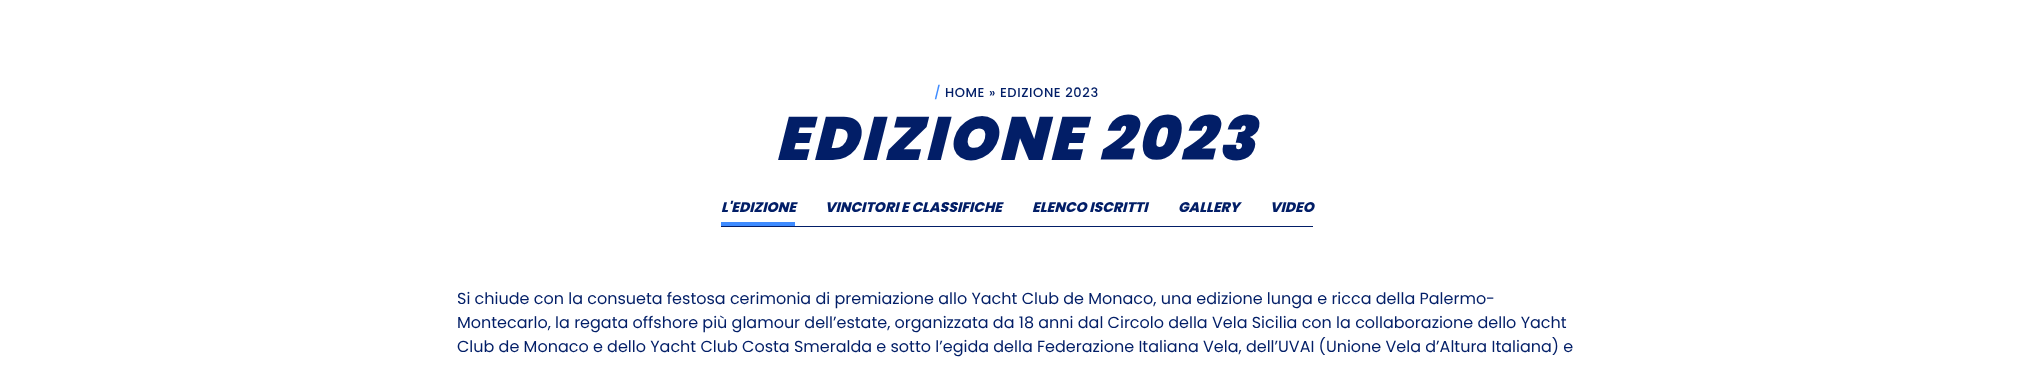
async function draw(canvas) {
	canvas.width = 2034;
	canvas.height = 368;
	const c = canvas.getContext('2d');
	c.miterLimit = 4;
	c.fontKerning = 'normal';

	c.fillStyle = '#fff';
	c.fillRect(0, 0, 2034, 368);
	c.letterSpacing = '0.6px';
	c.font = '500 13px Poppins';
	c.fillStyle = '#3e8bff';
	c.fillText('/', 934, 97);
	c.fillStyle = '#021e67';
	c.fillText('HOME » EDIZIONE 2023', 945, 97);
	c.letterSpacing = '3px';
	c.font = 'italic 900 61px Poppins';
	c.fillText('EDIZIONE 2023', 775, 160);
	c.fillRect(721, 226, 592, 1);
	c.letterSpacing = '0px';
	c.font = 'italic 800 14px Poppins';
	c.fillText('L\'EDIZIONE', 721, 212);
	c.fillStyle = '#3e8bff';
	c.fillRect(721, 222, 74, 4);
	c.fillStyle = '#021e67';
	for (const [text, x, y] of [
		['VINCITORI E CLASSIFICHE', 825, 212],
		['ELENCO ISCRITTI', 1032, 212],
		['GALLERY', 1178, 212],
		['VIDEO', 1270, 212],
	]) {
		c.fillText(text, x, y);
	}
	c.font = '16px Poppins';
	for (const [text, x, y] of [
		['Si chiude con la consueta festosa cerimonia di premiazione allo Yacht Club de Monaco, una edizione lunga e ricca della Palermo-', 457, 304],
		['Montecarlo, la regata offshore più glamour dell’estate, organizzata da 18 anni dal Circolo della Vela Sicilia con la collaborazione dello Yacht', 457, 328],
		['Club de Monaco e dello Yacht Club Costa Smeralda e sotto l’egida della Federazione Italiana Vela, dell’UVAI (Unione Vela d’Altura Italiana) e', 457, 352],
	]) {
		c.fillText(text, x, y);
	}
}

draw(document.querySelector('canvas'));
